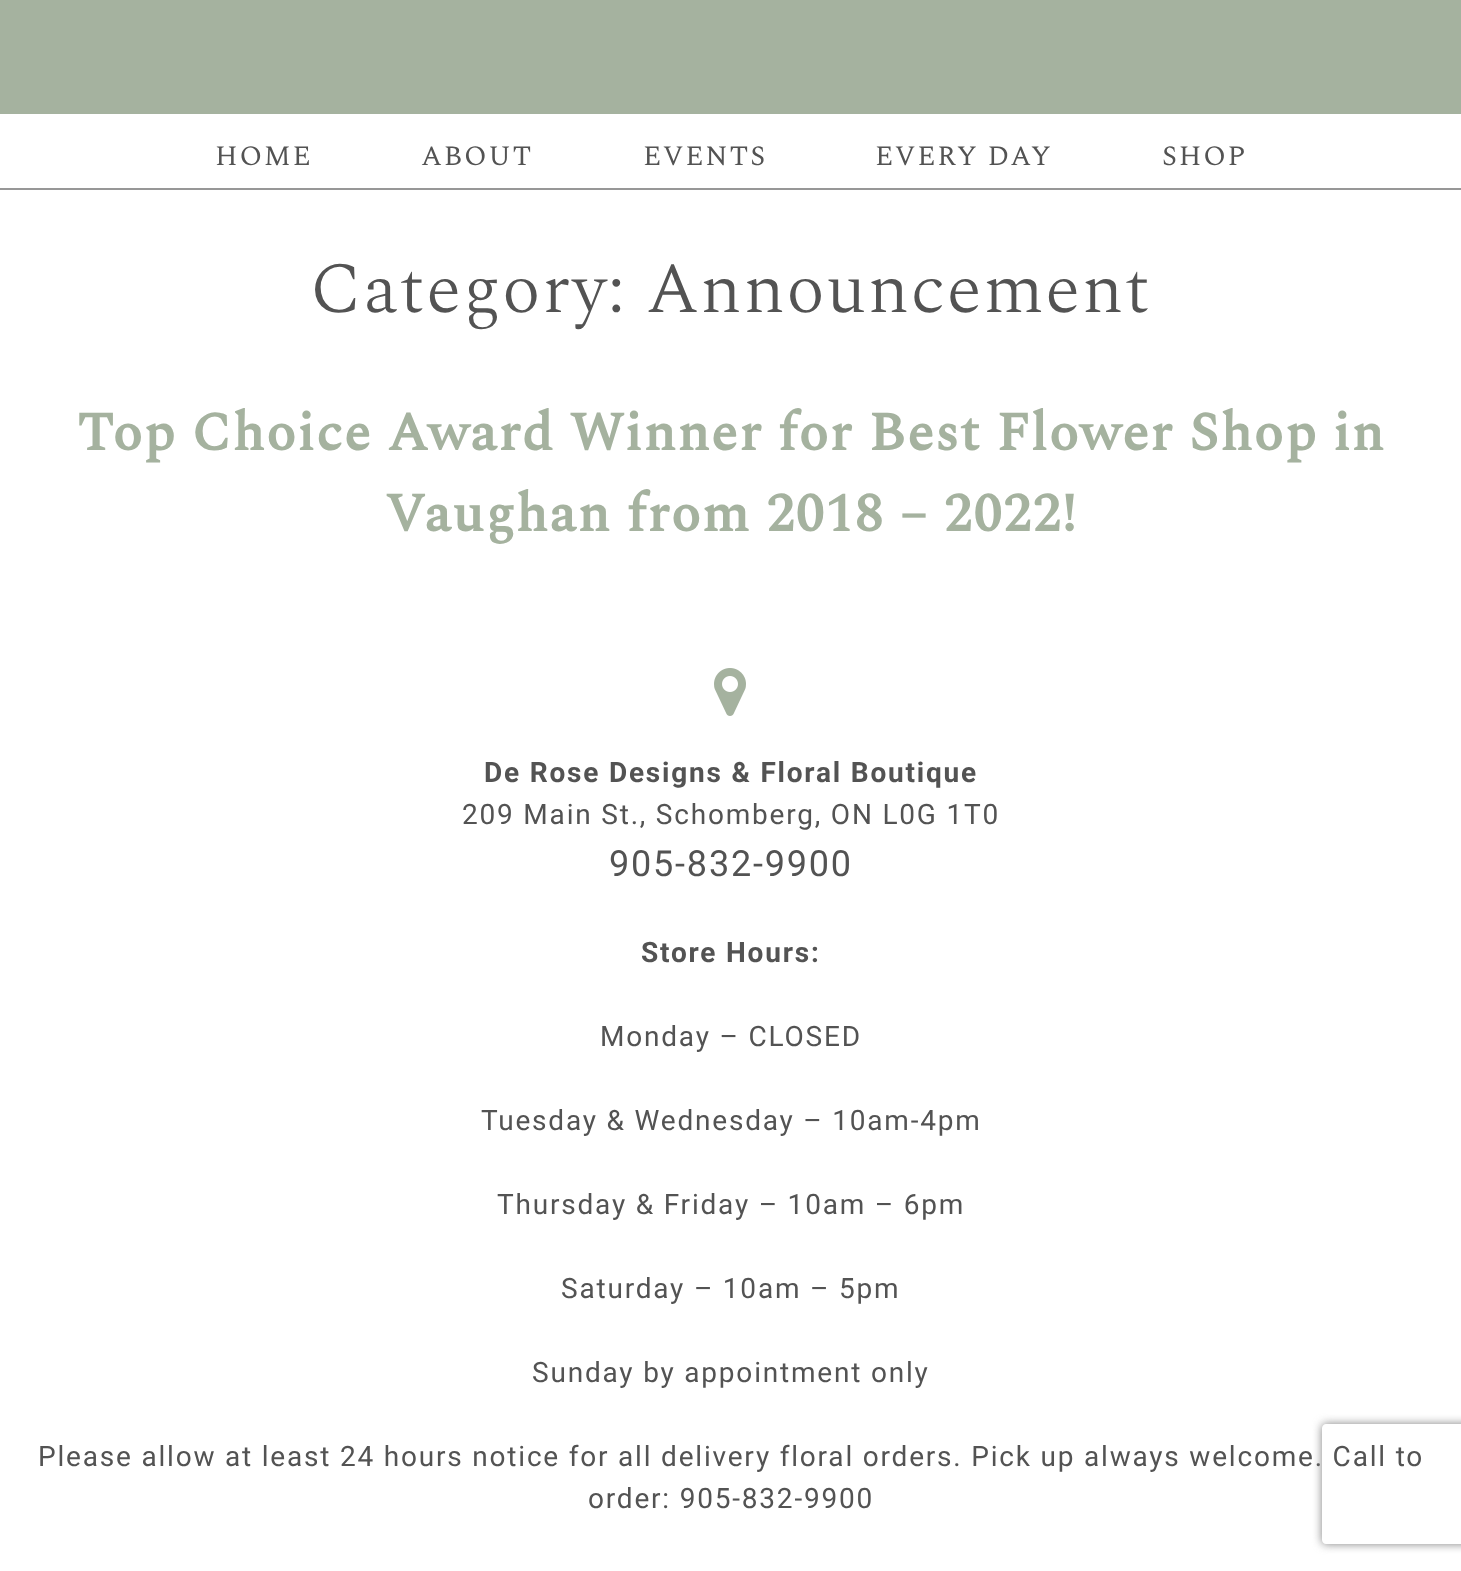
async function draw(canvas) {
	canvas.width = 1461;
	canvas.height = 1571;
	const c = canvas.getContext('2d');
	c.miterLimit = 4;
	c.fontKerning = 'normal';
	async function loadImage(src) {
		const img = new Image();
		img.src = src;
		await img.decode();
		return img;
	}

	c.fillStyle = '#fff';
	c.fillRect(0, 0, 1461, 1571);
	c.fillStyle = '#a5b29f';
	c.fillRect(0, 0, 1461, 114);
	c.fillStyle = '#979797';
	c.fillRect(0, 188, 1461, 2);
	c.letterSpacing = '1.8px';
	c.font = '28px Spectral';
	c.fillStyle = '#535353';
	for (const [text, x, y] of [
		['HOME', 215, 165],
		['ABOUT', 421, 165],
		['EVENTS', 643, 165],
		['EVERY DAY', 875, 165],
		['SHOP', 1162, 165],
	]) {
		c.fillText(text, x, y);
	}
	c.font = '300 72px Spectral';
	c.fillText('Category: Announcement', 310, 312);
	c.font = 'bold 54px Spectral';
	c.fillStyle = '#a5b29f';
	c.fillText('Top Choice Award Winner for Best Flower Shop in', 77, 450);
	c.fillText('Vaughan from 2018 – 2022!', 385, 531);
	c.drawImage(await loadImage('img1.png'), 714, 668, 32, 48);
	c.font = 'bold 28px Roboto';
	c.fillStyle = '#535353';
	c.fillText('De Rose Designs & Floral Boutique', 484, 782);
	c.font = '28px Roboto';
	c.fillText('209 Main St., Schomberg, ON L0G 1T0', 462, 824);
	c.font = '36px Roboto';
	c.fillText('905-832-9900', 609, 876);
	c.font = 'bold 28px Roboto';
	c.fillText('Store Hours:', 641, 962);
	c.font = '28px Roboto';
	for (const [text, x, y] of [
		['Monday – CLOSED', 600, 1046],
		['Tuesday & Wednesday – 10am-4pm', 481, 1130],
		['Thursday & Friday – 10am – 6pm', 497, 1214],
		['Saturday – 10am – 5pm', 561, 1298],
		['Sunday by appointment only', 532, 1382],
		['Please allow at least 24 hours notice for all delivery floral orders. Pick up always welcome. Call to', 38, 1466],
		['order: 905-832-9900', 588, 1508],
	]) {
		c.fillText(text, x, y);
	}
	c.save();
	c.beginPath();
	c.moveTo(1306, 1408);
	c.lineTo(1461, 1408);
	c.lineTo(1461, 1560);
	c.lineTo(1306, 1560);
	c.closePath();
	c.moveTo(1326, 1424);
	c.lineTo(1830, 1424);
	c.bezierCurveTo(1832, 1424, 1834, 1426, 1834, 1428);
	c.lineTo(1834, 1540);
	c.bezierCurveTo(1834, 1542, 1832, 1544, 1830, 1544);
	c.lineTo(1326, 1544);
	c.bezierCurveTo(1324, 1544, 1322, 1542, 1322, 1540);
	c.lineTo(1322, 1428);
	c.bezierCurveTo(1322, 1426, 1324, 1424, 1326, 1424);
	c.closePath();
	c.clip('evenodd');
	c.fillStyle = '#808080';
	c.filter = 'blur(5px)';
	c.beginPath();
	c.roundRect(1322, 1424, 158, 120, 4);
	c.fill();
	c.filter = 'none';
	c.restore();
}

draw(document.querySelector('canvas'));
